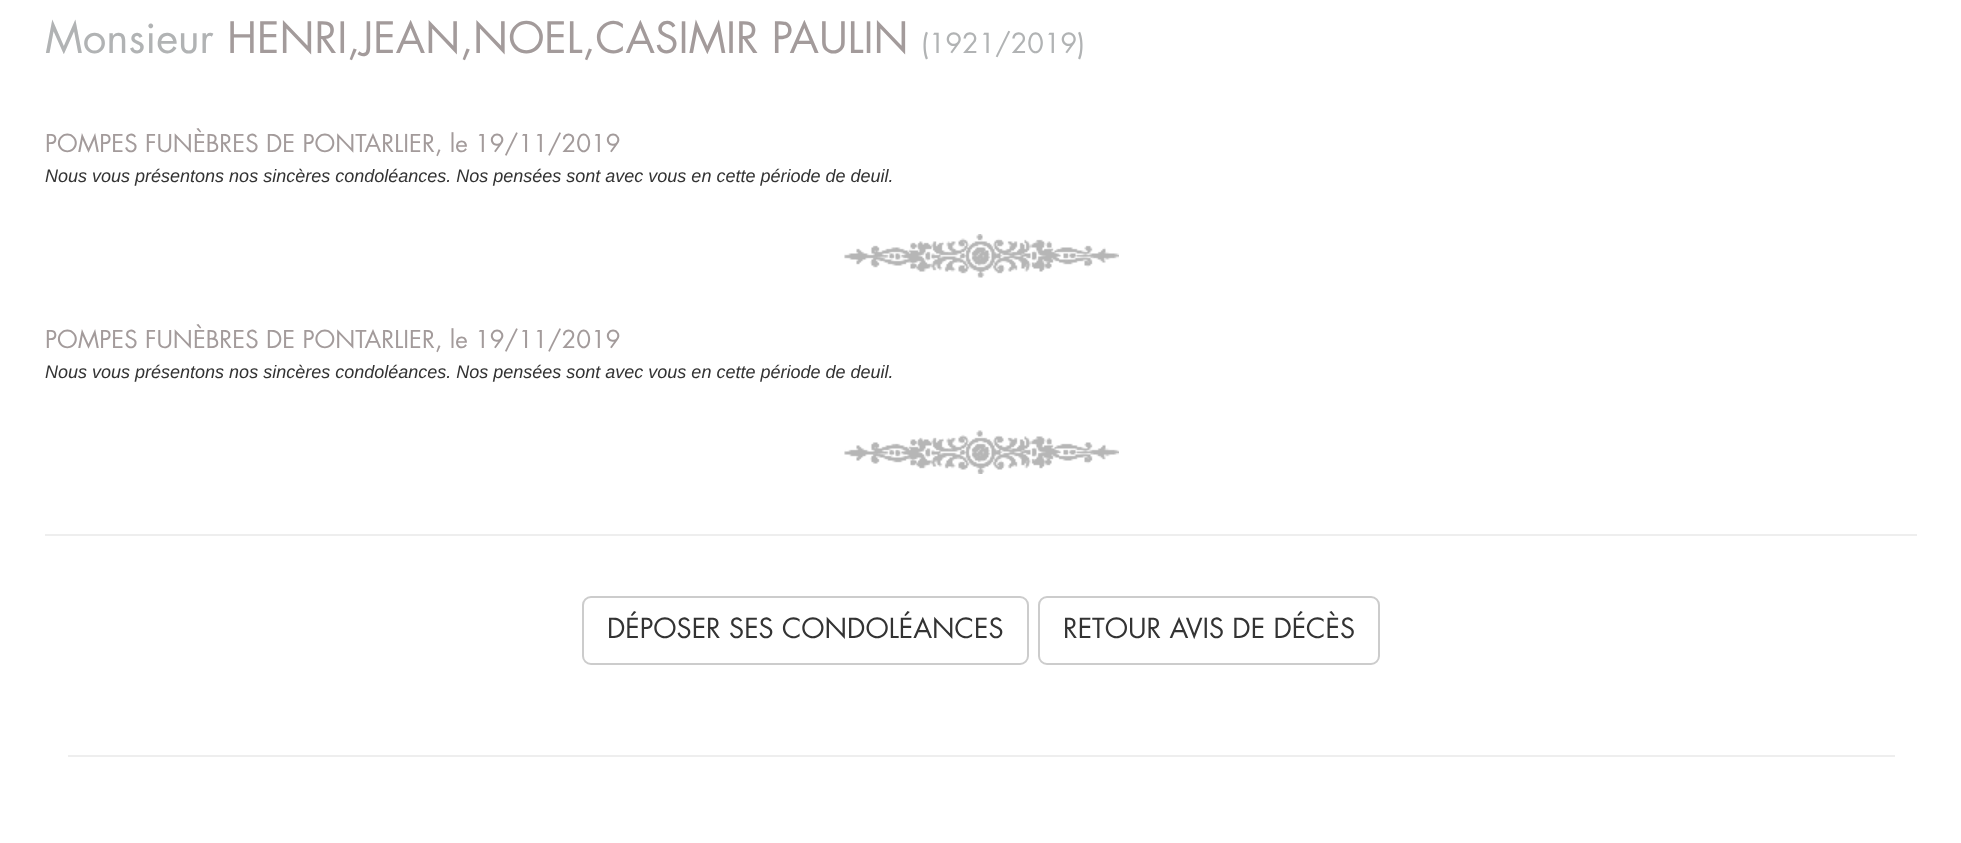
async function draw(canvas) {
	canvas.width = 1961;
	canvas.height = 843;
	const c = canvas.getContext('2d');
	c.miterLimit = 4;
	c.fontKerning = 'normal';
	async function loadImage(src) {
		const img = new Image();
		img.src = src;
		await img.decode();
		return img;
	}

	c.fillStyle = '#fff';
	c.fillRect(0, 0, 1961, 843);
	c.font = '42px Futura';
	c.fillStyle = '#b1b3b4';
	c.fillText('Monsieur', 45, 53);
	c.fillStyle = '#a39b9b';
	c.fillText('HENRI,JEAN,NOEL,CASIMIR PAULIN', 227, 53);
	c.font = '27px Futura';
	c.fillStyle = '#b1b3b4';
	c.fillText('(1921/2019)', 921, 53);
	c.font = '24px Futura';
	c.fillStyle = '#a39b9b';
	c.fillText('POMPES FUNÈBRES DE PONTARLIER, le 19/11/2019', 45, 152);
	c.font = 'italic 18px Liberation Sans';
	c.fillStyle = '#333';
	c.fillText('Nous vous présentons nos sincères condoléances. Nos pensées sont avec vous en cette période de deuil.', 45, 182);
	c.drawImage(await loadImage('img1.png'), 844, 234, 275, 44);
	c.font = '24px Futura';
	c.fillStyle = '#a39b9b';
	c.fillText('POMPES FUNÈBRES DE PONTARLIER, le 19/11/2019', 45, 348);
	c.font = 'italic 18px Liberation Sans';
	c.fillStyle = '#333';
	c.fillText('Nous vous présentons nos sincères condoléances. Nos pensées sont avec vous en cette période de deuil.', 45, 378);
	c.drawImage(await loadImage('img2.png'), 844, 430, 275, 44);
	c.fillStyle = '#eee';
	c.fillRect(45, 534, 1872, 2);
	c.beginPath();
	c.roundRect(583, 597, 445, 67, 8);
	c.strokeStyle = '#ccc';
	c.lineWidth = 2;
	c.stroke();
	c.font = '27px Futura';
	c.fillStyle = '#333';
	c.fillText('DÉPOSER SES CONDOLÉANCES', 607, 638);
	c.beginPath();
	c.roundRect(1039, 597, 340, 67, 8);
	c.stroke();
	c.fillText('RETOUR AVIS DE DÉCÈS', 1063, 638);
	c.fillStyle = '#eee';
	c.fillRect(68, 755, 1827, 2);
}

draw(document.querySelector('canvas'));
